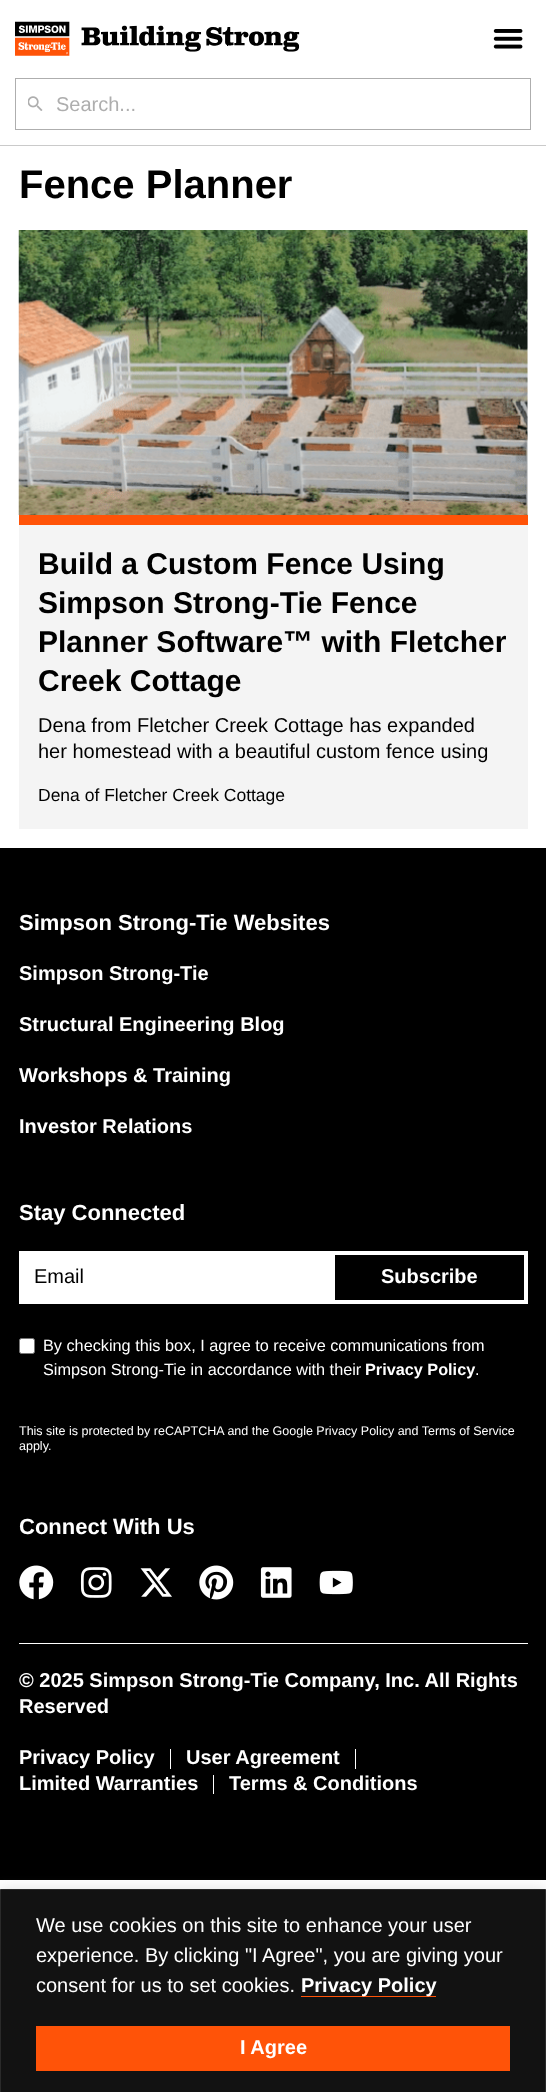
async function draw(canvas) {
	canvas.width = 546;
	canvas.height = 2092;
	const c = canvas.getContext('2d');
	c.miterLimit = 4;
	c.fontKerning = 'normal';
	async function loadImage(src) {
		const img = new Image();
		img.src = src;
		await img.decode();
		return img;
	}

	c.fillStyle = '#fff';
	c.fillRect(0, 0, 546, 2092);
	c.fillStyle = '#cacaca';
	c.fillRect(0, 145, 546, 1);
	c.drawImage(await loadImage('img1.png'), 15, 21, 285, 35);
	c.drawImage(await loadImage('img2.png'), 493, 29, 30, 20);
	c.strokeStyle = '#aeaeae';
	c.strokeRect(15.5, 78.5, 515, 51);
	c.drawImage(await loadImage('img3.png'), 28, 96, 15, 15);
	c.font = '20px Liberation Sans';
	c.fillStyle = '#aeaeae';
	c.fillText('Search...', 56, 111);
	c.font = 'bold 40px Liberation Sans';
	c.fillStyle = '#000';
	c.fillText('Fence Planner', 19, 198);
	c.fillStyle = '#f4f4f4';
	c.fillRect(19, 230, 509, 599);
	c.drawImage(await loadImage('img4.png'), 18, 230, 510, 285);
	c.fillStyle = '#ff5308';
	c.fillRect(19, 515, 509, 10);
	c.font = 'bold 30px Liberation Sans';
	c.fillStyle = '#000';
	for (const [text, x, y] of [
		['Build a Custom Fence Using', 38, 574],
		['Simpson Strong-Tie Fence', 38, 613],
		['Planner Software™ with Fletcher', 38, 652],
		['Creek Cottage', 38, 691],
	]) {
		c.fillText(text, x, y);
	}
	c.font = '20px Liberation Sans';
	c.fillText('Dena from Fletcher Creek Cottage has expanded', 38, 732);
	c.fillText('her homestead with a beautiful custom fence using', 38, 758);
	c.font = '17.5px Liberation Sans';
	c.fillText('Dena of Fletcher Creek Cottage', 38, 801);
	c.fillRect(0, 848, 546, 1032);
	c.font = 'bold 22px Liberation Sans';
	c.fillStyle = '#fff';
	c.fillText('Simpson Strong-Tie Websites', 19, 930);
	c.font = 'bold 20px Liberation Sans';
	for (const [text, x, y] of [
		['Simpson Strong-Tie', 19, 980],
		['Structural Engineering Blog', 19, 1031],
		['Workshops & Training', 19, 1082],
		['Investor Relations', 19, 1133],
	]) {
		c.fillText(text, x, y);
	}
	c.font = 'bold 22px Liberation Sans';
	c.fillText('Stay Connected', 19, 1220);
	c.fillRect(19, 1251, 312, 53);
	c.font = '20px Liberation Sans';
	c.fillStyle = '#000';
	c.fillText('Email', 34, 1283);
	c.strokeStyle = '#fff';
	c.lineWidth = 4;
	c.strokeRect(333, 1253, 193, 49);
	c.font = 'bold 20px Liberation Sans';
	c.fillStyle = '#fff';
	c.fillText('Subscribe', 381, 1283);
	c.beginPath();
	c.roundRect(19.5, 1338.5, 15, 15, 2);
	c.fill();
	c.strokeStyle = '#767676';
	c.lineWidth = 1;
	c.stroke();
	c.font = '16.25px Liberation Sans';
	c.fillText('By checking this box, I agree to receive communications from', 43, 1351);
	c.fillText('Simpson Strong-Tie in accordance with their', 43, 1375);
	c.font = 'bold 16.25px Liberation Sans';
	c.fillText('Privacy Policy', 365, 1375);
	c.font = '16.25px Liberation Sans';
	c.fillText('.', 475, 1375);
	c.font = '12.5px Liberation Sans';
	c.fillText('This site is protected by reCAPTCHA and the Google Privacy Policy and Terms of Service', 19, 1435);
	c.fillText('apply.', 19, 1450);
	c.font = 'bold 22px Liberation Sans';
	c.fillText('Connect With Us', 19, 1534);
	c.drawImage(await loadImage('img5.png'), 19, 1565, 35, 35);
	c.drawImage(await loadImage('img6.png'), 80, 1567, 32, 31);
	c.drawImage(await loadImage('img7.png'), 140, 1568, 32, 29);
	c.drawImage(await loadImage('img8.png'), 199, 1565, 35, 35);
	c.drawImage(await loadImage('img9.png'), 260, 1567, 32, 31);
	c.drawImage(await loadImage('img10.png'), 319, 1570, 34, 25);
	c.fillRect(19, 1643, 509, 1);
	c.font = 'bold 20px Liberation Sans';
	for (const [text, x, y] of [
		['© 2025 Simpson Strong-Tie Company, Inc. All Rights', 19, 1687],
		['Reserved', 19, 1713],
		['Privacy Policy', 19, 1764],
	]) {
		c.fillText(text, x, y);
	}
	c.fillRect(170, 1749, 1, 20);
	c.fillText('User Agreement', 186, 1764);
	c.fillRect(355, 1749, 1, 20);
	c.fillText('Limited Warranties', 19, 1790);
	c.fillRect(213, 1775, 1, 19);
	c.fillText('Terms & Conditions', 229, 1790);
	c.fillStyle = '#acabab4d';
	c.filter = 'blur(6px)';
	c.beginPath();
	c.rect(0, 1888, 546, 203);
	c.fill();
	c.filter = 'none';
	c.fillStyle = '#121212';
	c.beginPath();
	c.rect(0.5, 1889.5, 545, 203);
	c.fill();
	c.strokeStyle = '#2a2a2a';
	c.stroke();
	c.font = '20px Liberation Sans';
	c.fillStyle = '#fff';
	for (const [text, x, y] of [
		['We use cookies on this site to enhance your user', 36, 1932],
		['experience. By clicking "I Agree", you are giving your', 36, 1962],
		['consent for us to set cookies.', 36, 1992],
	]) {
		c.fillText(text, x, y);
	}
	c.fillStyle = '#ff5308';
	c.fillRect(301, 1996, 135, 1);
	c.font = 'bold 20px Liberation Sans';
	c.fillStyle = '#fff';
	c.fillText('Privacy Policy', 301, 1992);
	c.fillStyle = '#ff5308';
	c.fillRect(36, 2026, 474, 45);
	c.fillStyle = '#fff';
	c.fillText('I Agree', 240, 2054);
}

draw(document.querySelector('canvas'));
